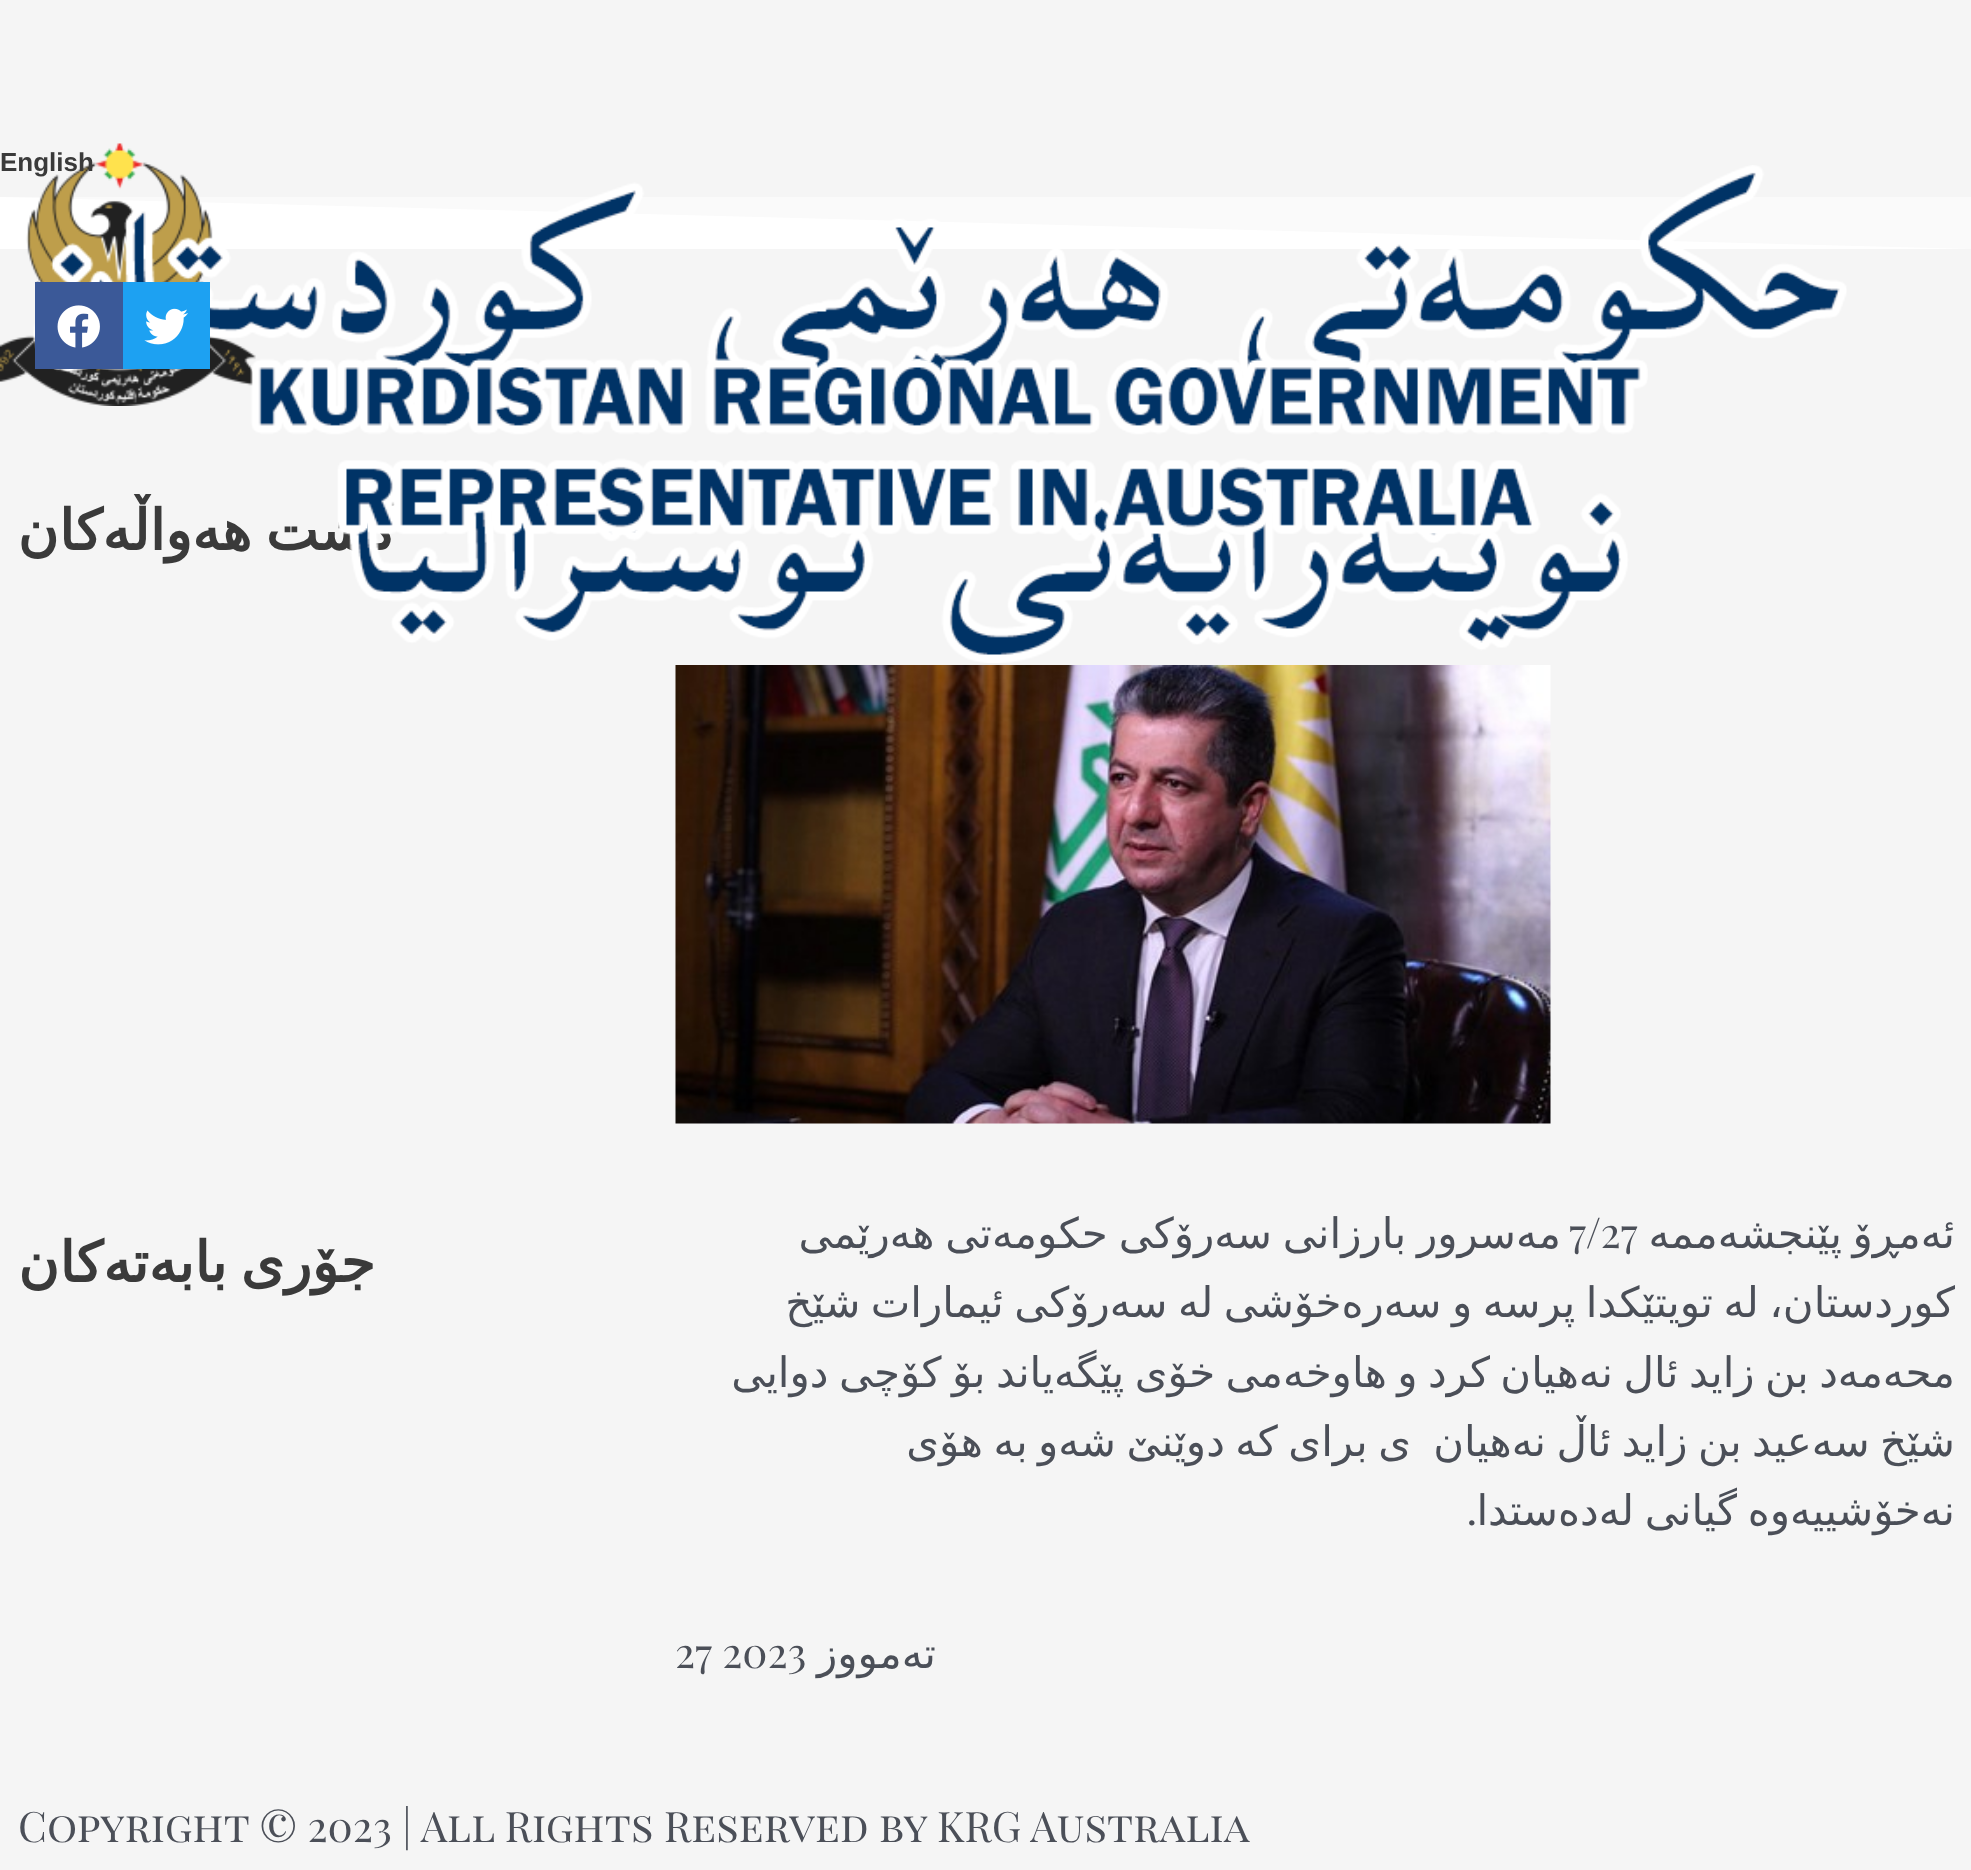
async function draw(canvas) {
	canvas.width = 1971;
	canvas.height = 1870;
	const c = canvas.getContext('2d');
	c.miterLimit = 4;
	c.fontKerning = 'normal';
	async function loadImage(src) {
		const img = new Image();
		img.src = src;
		await img.decode();
		return img;
	}

	c.fillStyle = '#f5f5f5';
	c.fillRect(0, 0, 1971, 1870);
	c.fillStyle = '#fafafa';
	c.fillRect(0, 197, 1971, 52);
	c.fillStyle = '#fff';
	c.beginPath();
	c.moveTo(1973, 249);
	c.lineTo(-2, 249);
	c.lineTo(-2, 197);
	c.closePath();
	c.fill();
	c.drawImage(await loadImage('img1.png'), 0, 143, 256, 263);
	c.wordSpacing = '-4px';
	c.direction = 'rtl';
	c.font = 'bold 56px DejaVu Sans';
	c.fillStyle = '#3a3a3a';
	c.fillText('گشت هەواڵەکان', 397, 550);
	c.drawImage(await loadImage('img2.png'), 32, 165, 1815, 498);
	c.wordSpacing = '0px';
	c.direction = 'ltr';
	c.font = 'bold 26px Liberation Sans';
	c.fillText('English', 0, 171);
	c.drawImage(await loadImage('img3.png'), 250, 358, 1398, 177);
	c.fillStyle = '#1da1f2';
	c.fillRect(123, 282, 87, 87);
	c.drawImage(await loadImage('img4.png'), 144, 308, 44, 37);
	c.fillStyle = '#3b5998';
	c.fillRect(35, 282, 88, 87);
	c.drawImage(await loadImage('img5.png'), 57, 305, 43, 43);
	c.wordSpacing = '-4px';
	c.direction = 'rtl';
	c.font = 'bold 56px DejaVu Sans';
	c.fillStyle = '#3a3a3a';
	c.fillText('جۆری بابەتەکان', 375, 1282);
	c.drawImage(await loadImage('img6.png'), 675, 665, 876, 459);
	c.wordSpacing = '-2.9px';
	c.font = '42px DejaVu Sans';
	c.fillStyle = '#4b4f58';
	c.fillText('ئەمڕۆ پێنجشەممە', 1955, 1248);
	c.wordSpacing = '0px';
	c.direction = 'ltr';
	c.font = '42px Playfair Display SC';
	c.fillText('7/27', 1569, 1248);
	c.wordSpacing = '-2.5px';
	c.direction = 'rtl';
	c.font = '42px DejaVu Sans';
	c.fillText('مەسرور بارزانی سەرۆکی حکومەتی هەرێمی', 1561, 1248);
	c.wordSpacing = '-2.9px';
	for (const [text, x, y] of [
		['کوردستان، لە تویتێکدا پرسە و سەرەخۆشی لە سەرۆکی ئیمارات شێخ', 1955, 1317],
		['محەمەد بن زاید ئال نەهیان کرد و هاوخەمی خۆی پێگەیاند بۆ کۆچی دوایی', 1955, 1387],
		['شێخ سەعید بن زاید ئاڵ نەهیان', 1955, 1456],
		['ی برای کە دوێنێ شەو بە هۆی', 1411, 1456],
	]) {
		c.fillText(text, x, y);
	}
	c.wordSpacing = '0px';
	for (const [text, x, y] of [
		['نەخۆشییەوە', 1955, 1525],
		['گیانی', 1737, 1525],
		['لەدەستدا', 1634, 1525],
	]) {
		c.fillText(text, x, y);
	}
	c.font = '42px Playfair Display SC';
	c.fillText('.', 1477, 1525);
	c.font = '42px DejaVu Sans';
	c.fillText('تەمووز', 936, 1668);
	c.direction = 'ltr';
	c.font = '42px Playfair Display SC';
	c.fillText('27 2023', 675, 1668);
	c.fillText('Copyright © 2023 | All Rights Reserved by KRG Australia', 18, 1842);
}

draw(document.querySelector('canvas'));
